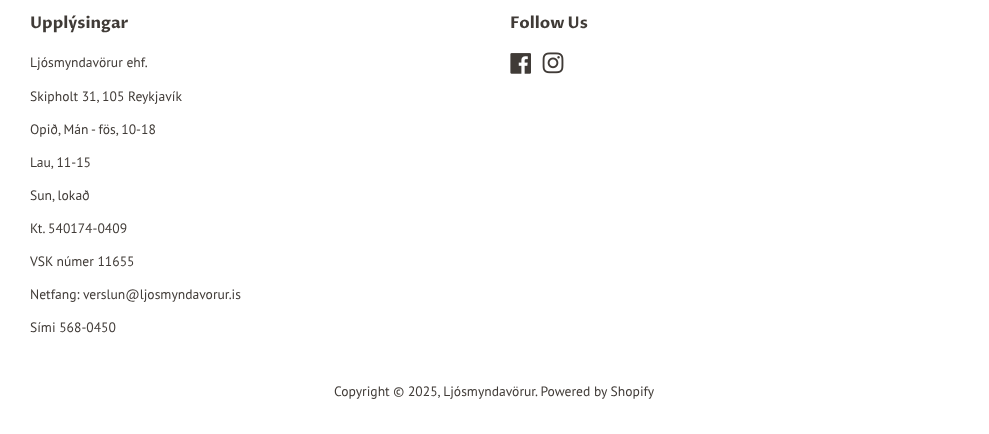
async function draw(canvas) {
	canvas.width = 989;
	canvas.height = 434;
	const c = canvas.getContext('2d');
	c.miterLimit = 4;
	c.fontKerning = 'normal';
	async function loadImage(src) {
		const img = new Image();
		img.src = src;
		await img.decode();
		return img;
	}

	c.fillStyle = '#fff';
	c.fillRect(0, 0, 989, 434);
	c.font = 'bold 16px Proza Libre';
	c.fillStyle = '#403b37';
	c.fillText('Upplýsingar', 30, 28);
	c.font = '13.6px PT Sans';
	for (const [text, x, y] of [
		['Ljósmyndavörur ehf.', 30, 67],
		['Skipholt 31, 105 Reykjavík', 30, 101],
		['Opið, Mán - fös, 10-18', 30, 134],
		['Lau, 11-15', 30, 167],
		['Sun, lokað', 30, 200],
		['Kt. 540174-0409', 30, 233],
		['VSK númer 11655', 30, 266],
		['Netfang: verslun@ljosmyndavorur.is', 30, 299],
		['Sími 568-0450', 30, 332],
	]) {
		c.fillText(text, x, y);
	}
	c.font = 'bold 16px Proza Libre';
	c.fillText('Follow Us', 510, 28);
	c.drawImage(await loadImage('img1.png'), 510, 53, 21, 21);
	c.drawImage(await loadImage('img2.png'), 542, 52, 22, 22);
	c.font = '13.6px PT Sans';
	c.fillText('Copyright © 2025, Ljósmyndavörur', 334, 396);
	c.fillText('. Powered by Shopify', 535, 396);
}

draw(document.querySelector('canvas'));
